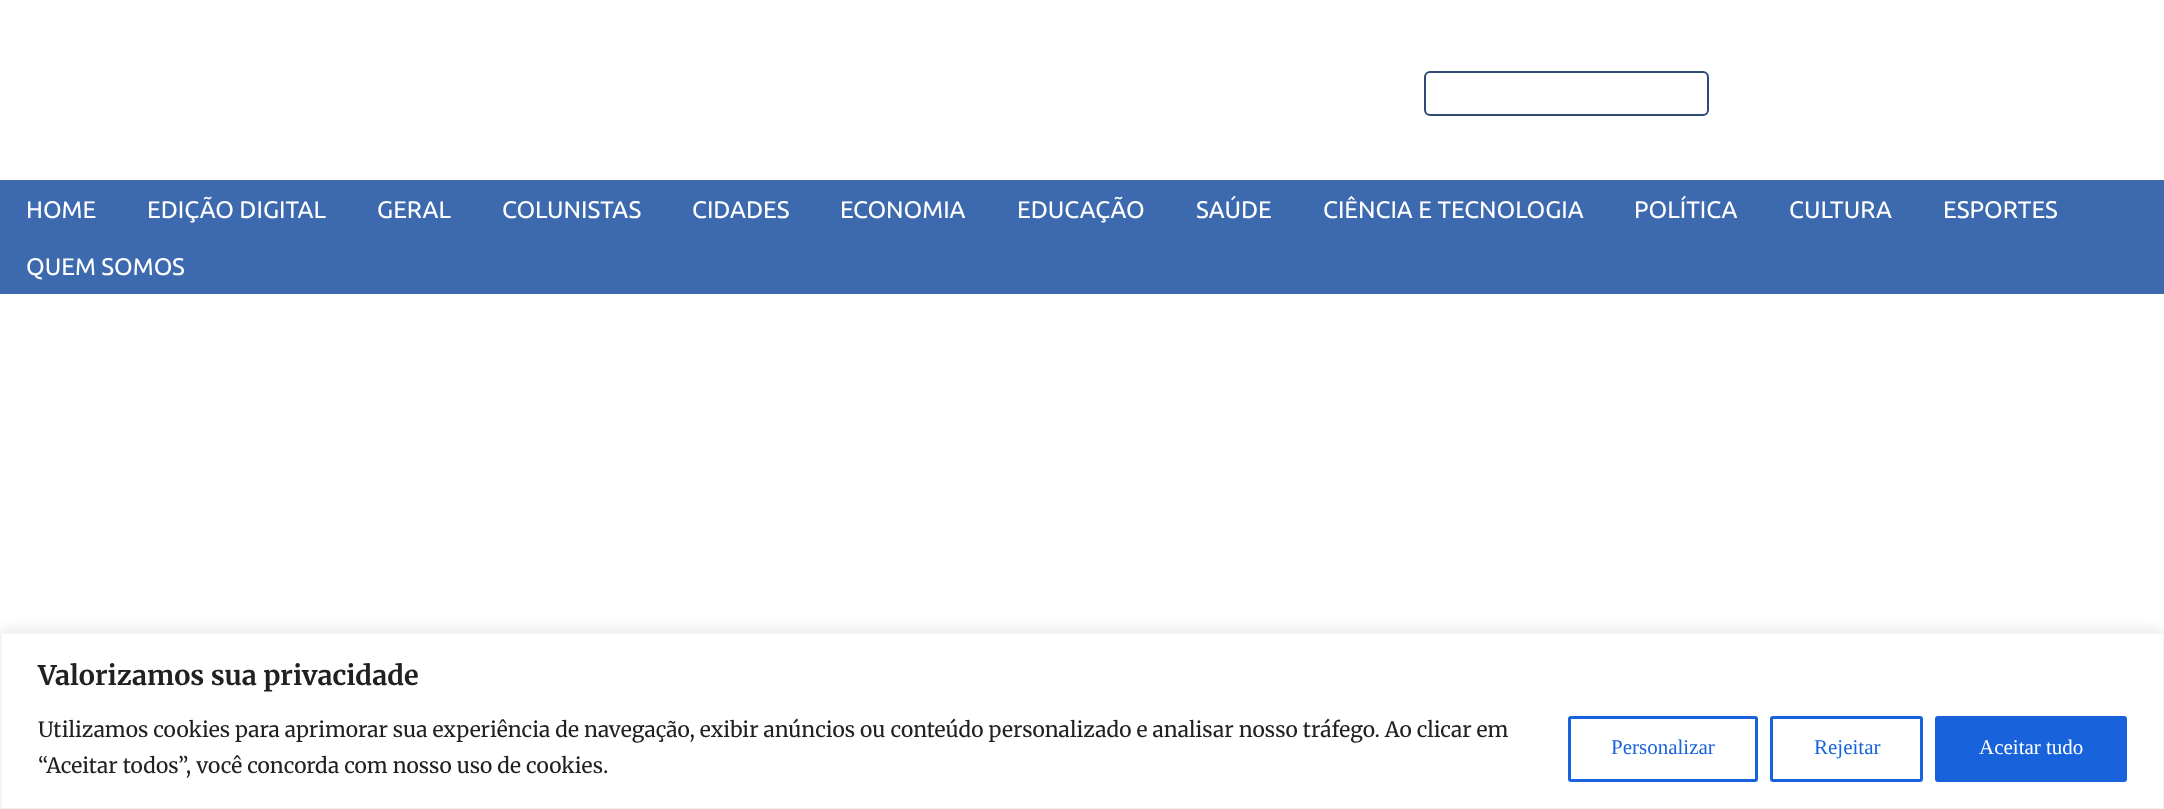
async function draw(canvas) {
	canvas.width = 2164;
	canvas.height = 809;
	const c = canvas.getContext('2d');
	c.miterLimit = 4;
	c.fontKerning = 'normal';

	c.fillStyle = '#fff';
	c.fillRect(0, 0, 2164, 809);
	c.beginPath();
	c.roundRect(1425, 72, 283, 43, 5);
	c.strokeStyle = '#2f4b74';
	c.lineWidth = 2;
	c.stroke();
	c.fillStyle = '#3d6aae';
	c.fillRect(0, 180, 2164, 114);
	c.font = '24px Ubuntu';
	c.fillStyle = '#fff';
	for (const [text, x, y] of [
		['HOME', 26, 218],
		['EDIÇÃO DIGITAL', 147, 218],
		['GERAL', 377, 218],
		['COLUNISTAS', 502, 218],
		['CIDADES', 692, 218],
		['ECONOMIA', 840, 218],
		['EDUCAÇÃO', 1017, 218],
		['SAÚDE', 1196, 218],
		['CIÊNCIA E TECNOLOGIA', 1323, 218],
		['POLÍTICA', 1634, 218],
		['CULTURA', 1789, 218],
		['ESPORTES', 1943, 218],
		['QUEM SOMOS', 26, 275],
	]) {
		c.fillText(text, x, y);
	}
	c.save();
	c.beginPath();
	c.rect(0, 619, 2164, 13);
	c.clip();
	c.fillStyle = '#acabab4d';
	c.filter = 'blur(7.5px)';
	c.beginPath();
	c.rect(0, 630, 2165, 179);
	c.fill();
	c.filter = 'none';
	c.restore();
	c.strokeStyle = '#f4f4f4';
	c.strokeRect(1, 633, 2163, 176);
	c.font = 'bold 27px Merriweather';
	c.fillStyle = '#212121';
	c.fillText('Valorizamos sua privacidade', 38, 685);
	c.font = '21px Merriweather';
	c.fillText('Utilizamos cookies para aprimorar sua experiência de navegação, exibir anúncios ou conteúdo personalizado e analisar nosso tráfego. Ao clicar em', 38, 737);
	c.fillText('“Aceitar todos”, você concorda com nosso uso de cookies.', 38, 773);
	c.beginPath();
	c.roundRect(1569.5, 717.5, 187, 63, 1.5);
	c.strokeStyle = '#1863dc';
	c.lineWidth = 3;
	c.stroke();
	c.font = '21px Liberation Serif';
	c.fillStyle = '#1863dc';
	c.fillText('Personalizar', 1611, 754);
	c.beginPath();
	c.roundRect(1771.5, 717.5, 150, 63, 1.5);
	c.stroke();
	c.fillText('Rejeitar', 1814, 754);
	c.beginPath();
	c.roundRect(1936.5, 717.5, 189, 63, 1.5);
	c.fill();
	c.stroke();
	c.fillStyle = '#fff';
	c.fillText('Aceitar tudo', 1979, 754);
}

draw(document.querySelector('canvas'));
